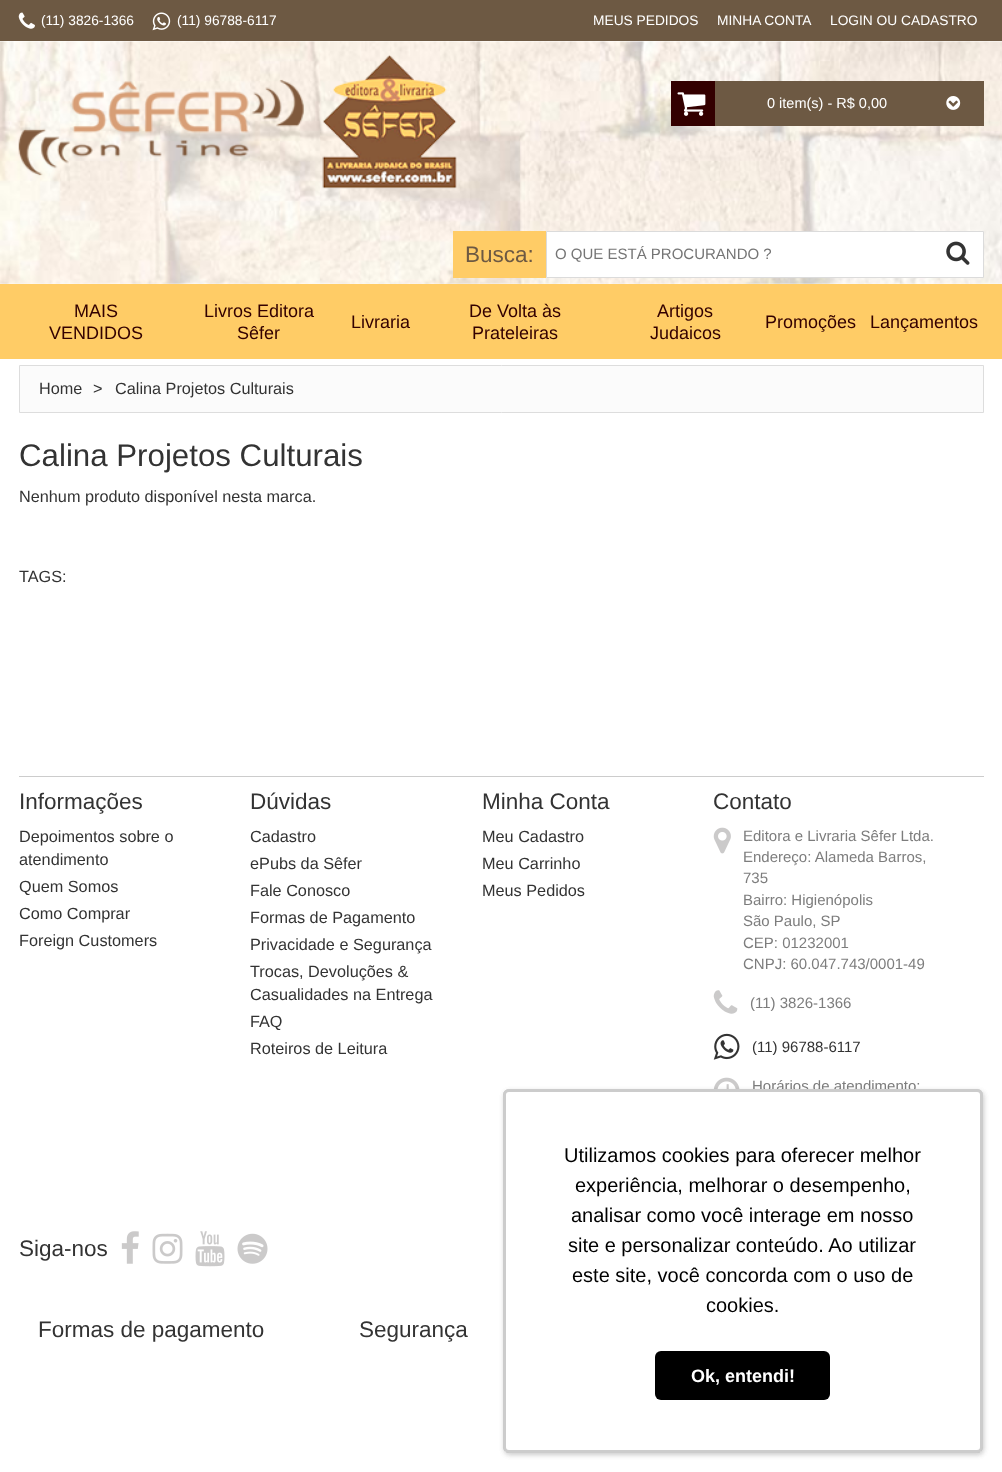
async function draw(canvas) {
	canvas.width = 1002;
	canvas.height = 1472;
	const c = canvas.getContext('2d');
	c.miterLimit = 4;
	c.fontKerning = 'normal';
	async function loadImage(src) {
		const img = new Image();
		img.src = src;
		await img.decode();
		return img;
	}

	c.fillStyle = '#fff';
	c.fillRect(0, 0, 1002, 1472);
	c.fillStyle = '#6d5943';
	c.fillRect(0, 0, 1002, 41);
	c.drawImage(await loadImage('img1.png'), 18, 12, 17, 17);
	c.font = '13.75px Liberation Sans';
	c.fillStyle = '#fff';
	c.fillText('(11) 3826-1366', 41, 25);
	c.drawImage(await loadImage('img2.png'), 152, 12, 19, 19);
	for (const [text, x, y] of [
		['(11) 96788-6117', 177, 25],
		['MEUS PEDIDOS', 593, 25],
		['MINHA CONTA', 717, 25],
		['LOGIN OU CADASTRO', 830, 25],
	]) {
		c.fillText(text, x, y);
	}
	c.drawImage(await loadImage('img3.png'), 0, 41, 1002, 243);
	c.drawImage(await loadImage('img4.png'), 18, 55, 439, 134);
	c.fillStyle = '#6d5943';
	c.fillRect(715, 81, 269, 45);
	c.fillStyle = '#300';
	c.fillRect(671, 81, 44, 45);
	c.drawImage(await loadImage('img5.png'), 677, 92, 29, 24);
	c.font = '14.5px Liberation Sans';
	c.fillStyle = '#fff';
	c.fillText('0 item(s) - R$ 0,00', 767, 108);
	c.drawImage(await loadImage('img6.png'), 946, 96, 15, 14);
	c.fillStyle = '#fc6';
	c.fillRect(453, 231, 93, 47);
	c.font = '22.5px Liberation Sans';
	c.fillStyle = '#6d5943';
	c.fillText('Busca:', 465, 262);
	c.fillStyle = '#fff';
	c.beginPath();
	c.rect(546.5, 231.5, 437, 46);
	c.fill();
	c.strokeStyle = '#dbdbdb';
	c.stroke();
	c.font = '15px Liberation Sans';
	c.fillStyle = '#757575';
	c.fillText('O QUE ESTÁ PROCURANDO ?', 555, 259);
	c.drawImage(await loadImage('img7.png'), 946, 241, 24, 24);
	c.fillStyle = '#fc6';
	c.fillRect(0, 284, 1002, 75);
	c.font = '18px Liberation Sans';
	c.fillStyle = '#300';
	for (const [text, x, y] of [
		['MAIS', 74, 317],
		['VENDIDOS', 49, 339],
		['Livros Editora', 204, 317],
		['Sêfer', 237, 339],
		['Livraria', 351, 328],
		['De Volta às', 469, 317],
		['Prateleiras', 472, 339],
		['Artigos', 657, 317],
		['Judaicos', 650, 339],
		['Promoções', 765, 328],
		['Lançamentos', 870, 328],
	]) {
		c.fillText(text, x, y);
	}
	c.fillStyle = '#fbfbfb';
	c.beginPath();
	c.rect(19.5, 365.5, 964, 47);
	c.fill();
	c.strokeStyle = '#ddd';
	c.stroke();
	c.font = '16.25px Liberation Sans';
	c.fillStyle = '#333';
	for (const [text, x, y] of [
		['Home', 39, 394],
		['>', 93, 394],
		['Calina Projetos Culturais', 115, 394],
	]) {
		c.fillText(text, x, y);
	}
	c.font = '31.25px Liberation Sans';
	c.fillText('Calina Projetos Culturais', 19, 466);
	c.font = '16.25px Liberation Sans';
	c.fillText('Nenhum produto disponível nesta marca.', 19, 502);
	c.fillText('TAGS:', 19, 582);
	c.fillStyle = '#ccc';
	c.fillRect(19, 776, 965, 1);
	c.font = '22.5px Liberation Sans';
	c.fillStyle = '#333';
	c.fillText('Informações', 19, 809);
	c.font = '16.25px Liberation Sans';
	for (const [text, x, y] of [
		['Depoimentos sobre o', 19, 842],
		['atendimento', 19, 865],
		['Quem Somos', 19, 892],
		['Como Comprar', 19, 919],
		['Foreign Customers', 19, 946],
	]) {
		c.fillText(text, x, y);
	}
	c.font = '22.5px Liberation Sans';
	c.fillText('Dúvidas', 250, 809);
	c.font = '16.25px Liberation Sans';
	for (const [text, x, y] of [
		['Cadastro', 250, 842],
		['ePubs da Sêfer', 250, 869],
		['Fale Conosco', 250, 896],
		['Formas de Pagamento', 250, 923],
		['Privacidade e Segurança', 250, 950],
		['Trocas, Devoluções &', 250, 977],
		['Casualidades na Entrega', 250, 1000],
		['FAQ', 250, 1027],
		['Roteiros de Leitura', 250, 1054],
	]) {
		c.fillText(text, x, y);
	}
	c.font = '22.5px Liberation Sans';
	c.fillText('Minha Conta', 482, 809);
	c.font = '16.25px Liberation Sans';
	for (const [text, x, y] of [
		['Meu Cadastro', 482, 842],
		['Meu Carrinho', 482, 869],
		['Meus Pedidos', 482, 896],
	]) {
		c.fillText(text, x, y);
	}
	c.font = '22.5px Liberation Sans';
	c.fillText('Contato', 713, 809);
	c.drawImage(await loadImage('img8.png'), 713, 827, 18, 27);
	c.font = '15px Liberation Sans';
	c.fillStyle = '#7d7d7d';
	for (const [text, x, y] of [
		['Editora e Livraria Sêfer Ltda.', 743, 841],
		['Endereço: Alameda Barros,', 743, 862],
		['735', 743, 883],
		['Bairro: Higienópolis', 743, 905],
		['São Paulo, SP', 743, 926],
		['CEP: 01232001', 743, 948],
		['CNPJ: 60.047.743/0001-49', 743, 969],
	]) {
		c.fillText(text, x, y);
	}
	c.drawImage(await loadImage('img9.png'), 713, 990, 25, 24);
	c.fillText('(11) 3826-1366', 750, 1008);
	c.drawImage(await loadImage('img10.png'), 713, 1033, 27, 27);
	c.fillStyle = '#333';
	c.fillText('(11) 96788-6117', 752, 1052);
	c.drawImage(await loadImage('img11.png'), 713, 1077, 27, 12);
	c.fillStyle = '#7d7d7d';
	c.fillText('Horários de atendimento:', 752, 1091);
	c.font = '22.5px Liberation Sans';
	c.fillStyle = '#333';
	c.fillText('Siga-nos', 19, 1256);
	c.drawImage(await loadImage('img12.png'), 121, 1231, 18, 33);
	c.drawImage(await loadImage('img13.png'), 152, 1233, 31, 31);
	c.drawImage(await loadImage('img14.png'), 195, 1231, 30, 36);
	c.drawImage(await loadImage('img15.png'), 237, 1233, 31, 31);
	c.fillText('Formas de pagamento', 38, 1337);
	c.fillText('Segurança', 359, 1337);
	c.fillStyle = '#0000001a';
	c.filter = 'blur(2.5px)';
	c.beginPath();
	c.roundRect(504, 1091, 480, 364, 6);
	c.fill();
	c.filter = 'none';
	c.beginPath();
	c.roundRect(504.5, 1090.5, 477, 361, 4.5);
	c.strokeStyle = '#00000033';
	c.lineWidth = 3;
	c.stroke();
	c.filter = 'blur(2.5px)';
	c.beginPath();
	c.roundRect(504, 1091, 480, 364, 6);
	c.fill();
	c.filter = 'none';
	c.fillStyle = '#fff';
	c.beginPath();
	c.roundRect(503, 1089, 480, 364, 6);
	c.fill();
	c.beginPath();
	c.roundRect(504.5, 1090.5, 477, 361, 4.5);
	c.stroke();
	c.font = '20px Liberation Sans';
	c.fillStyle = '#000';
	for (const [text, x, y] of [
		['Utilizamos cookies para oferecer melhor', 564, 1162],
		['experiência, melhorar o desempenho,', 575, 1192],
		['analisar como você interage em nosso', 571, 1222],
		['site e personalizar conteúdo. Ao utilizar', 568, 1252],
		['este site, você concorda com o uso de', 572, 1282],
		['cookies.', 706, 1312],
	]) {
		c.fillText(text, x, y);
	}
	c.beginPath();
	c.roundRect(655, 1351, 175, 49, 6);
	c.fill();
	c.font = 'bold 18px Liberation Sans';
	c.fillStyle = '#fff';
	c.fillText('Ok, entendi!', 691, 1382);
}

draw(document.querySelector('canvas'));
